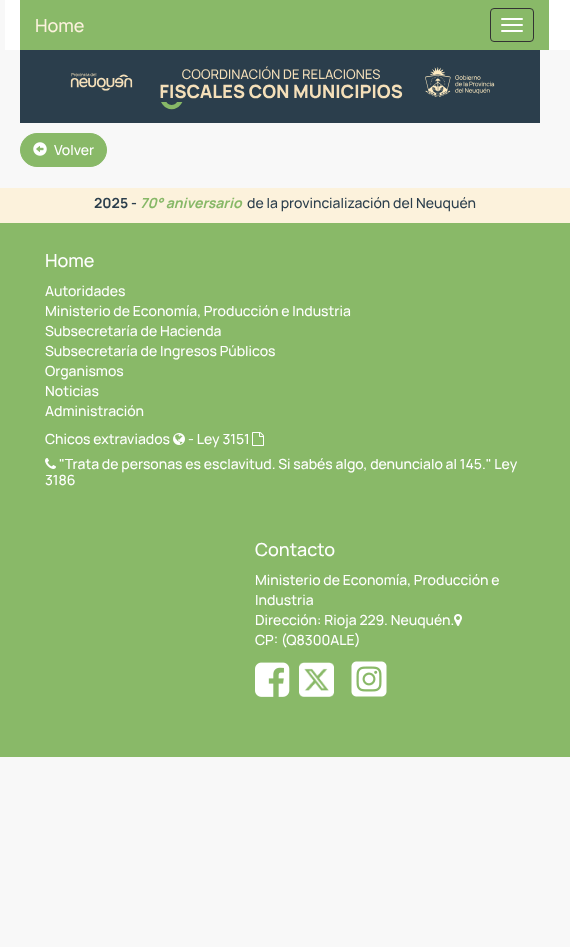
async function draw(canvas) {
	canvas.width = 570;
	canvas.height = 947;
	const c = canvas.getContext('2d');
	c.miterLimit = 4;
	c.fontKerning = 'normal';
	async function loadImage(src) {
		const img = new Image();
		img.src = src;
		await img.decode();
		return img;
	}

	c.fillStyle = '#f8f8f8';
	c.fillRect(0, 0, 570, 947);
	c.fillStyle = '#fff';
	c.fillRect(5, 0, 565, 50);
	c.fillStyle = '#89b968';
	c.fillRect(20, 0, 529, 50);
	c.font = '500 18px Manrope';
	c.fillStyle = '#fcf2dd';
	c.fillText('Home', 35, 32);
	c.beginPath();
	c.roundRect(490.5, 8.5, 43, 33, 3.5);
	c.strokeStyle = '#333';
	c.stroke();
	c.fillStyle = '#fff';
	c.beginPath();
	c.roundRect(501, 18, 22, 2, 1);
	c.fill();
	c.beginPath();
	c.roundRect(501, 24, 22, 2, 1);
	c.fill();
	c.beginPath();
	c.roundRect(501, 30, 22, 2, 1);
	c.fill();
	c.drawImage(await loadImage('img1.png'), 20, 50, 520, 73);
	c.fillStyle = '#89b968';
	c.beginPath();
	c.roundRect(20.5, 133.5, 86, 33, 16.5);
	c.fill();
	c.strokeStyle = '#89b968';
	c.stroke();
	c.drawImage(await loadImage('img2.png'), 33, 142, 14, 14);
	c.font = '500 14px Manrope';
	c.fillStyle = '#fff';
	c.fillText('Volver', 54, 155);
	c.fillStyle = '#89b968';
	c.fillRect(0, 223, 570, 534);
	c.fillStyle = '#fcf2dc';
	c.fillRect(0, 188, 570, 35);
	c.font = 'bold 14px Manrope';
	c.fillStyle = '#2b3e4c';
	c.fillText('2025 -', 94, 208);
	c.font = 'italic bold 14px Manrope';
	c.fillStyle = '#87b867';
	c.fillText('70° aniversario', 140, 208);
	c.font = '500 14px Manrope';
	c.fillStyle = '#2b3e4c';
	c.fillText('de la provincialización del Neuquén', 247, 208);
	c.font = '500 18px Manrope';
	c.fillStyle = '#fff';
	c.fillText('Home', 45, 267);
	c.font = '500 14px Manrope';
	for (const [text, x, y] of [
		['Autoridades', 45, 296],
		['Ministerio de Economía, Producción e Industria', 45, 316],
		['Subsecretaría de Hacienda', 45, 336],
		['Subsecretaría de Ingresos Públicos', 45, 356],
		['Organismos', 45, 376],
		['Noticias', 45, 396],
		['Administración', 45, 416],
		['Chicos extraviados', 45, 444],
	]) {
		c.fillText(text, x, y);
	}
	c.drawImage(await loadImage('img3.png'), 173, 433, 12, 12);
	c.fillText('- Ley 3151', 188, 444);
	c.drawImage(await loadImage('img4.png'), 252, 432, 12, 14);
	c.drawImage(await loadImage('img5.png'), 45, 458, 11, 11);
	c.fillText('"Trata de personas es esclavitud. Si sabés algo, denuncialo al 145." Ley', 59, 469);
	c.fillText('3186', 45, 485);
	c.font = '500 18px Manrope';
	c.fillText('Contacto', 255, 556);
	c.font = '500 14px Manrope';
	for (const [text, x, y] of [
		['Ministerio de Economía, Producción e', 255, 585],
		['Industria', 255, 605],
		['Dirección: Rioja 229. Neuquén.', 255, 625],
	]) {
		c.fillText(text, x, y);
	}
	c.drawImage(await loadImage('img6.png'), 454, 614, 8, 12);
	c.fillText('CP: (Q8300ALE)', 255, 645);
	c.drawImage(await loadImage('img7.png'), 255, 662, 35, 35);
	c.drawImage(await loadImage('img8.png'), 299, 662, 35, 35);
	c.drawImage(await loadImage('img9.png'), 351, 661, 36, 36);
}

draw(document.querySelector('canvas'));
